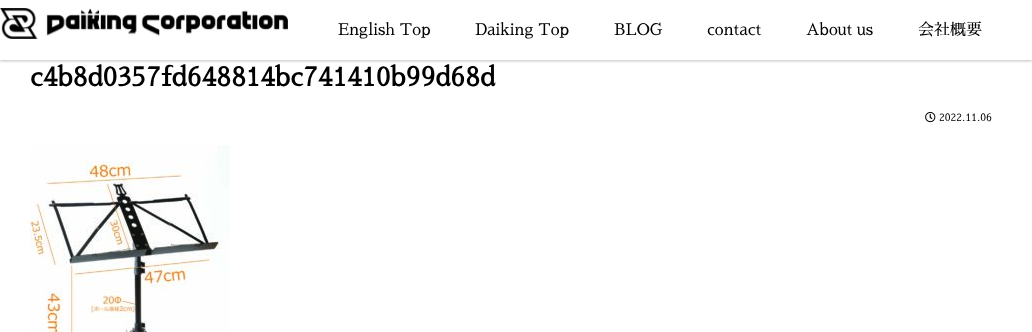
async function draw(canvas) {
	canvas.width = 1032;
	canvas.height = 332;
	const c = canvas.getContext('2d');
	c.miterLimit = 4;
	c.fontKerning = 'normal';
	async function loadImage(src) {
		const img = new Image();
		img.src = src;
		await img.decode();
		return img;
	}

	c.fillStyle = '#fff';
	c.fillRect(0, 0, 1032, 332);
	c.fillStyle = '#00000040';
	c.filter = 'blur(1.5px)';
	c.beginPath();
	c.rect(0, 1, 1032, 60);
	c.fill();
	c.filter = 'none';
	c.fillStyle = '#fff';
	c.fillRect(0, 0, 1032, 60);
	c.drawImage(await loadImage('img1.png'), 0, 8, 288, 31);
	c.font = '16px Sawarabi Mincho';
	c.fillStyle = '#000';
	for (const [text, x, y] of [
		['English Top', 338, 35],
		['Daiking Top', 475, 35],
		['BLOG', 614, 35],
		['contact', 707, 35],
		['About us', 806, 35],
		['会社概要', 918, 35],
	]) {
		c.fillText(text, x, y);
	}
	c.font = 'bold 26px Sawarabi Mincho';
	c.fillText('c4b8d0357fd648814bc741410b99d68d', 30, 86);
	c.drawImage(await loadImage('img2.png'), 925, 112, 11, 11);
	c.font = '10.5px Sawarabi Mincho';
	c.fillText('2022.11.06', 939, 121);
	c.drawImage(await loadImage('img3.png'), 30, 145, 200, 187);
}

draw(document.querySelector('canvas'));
